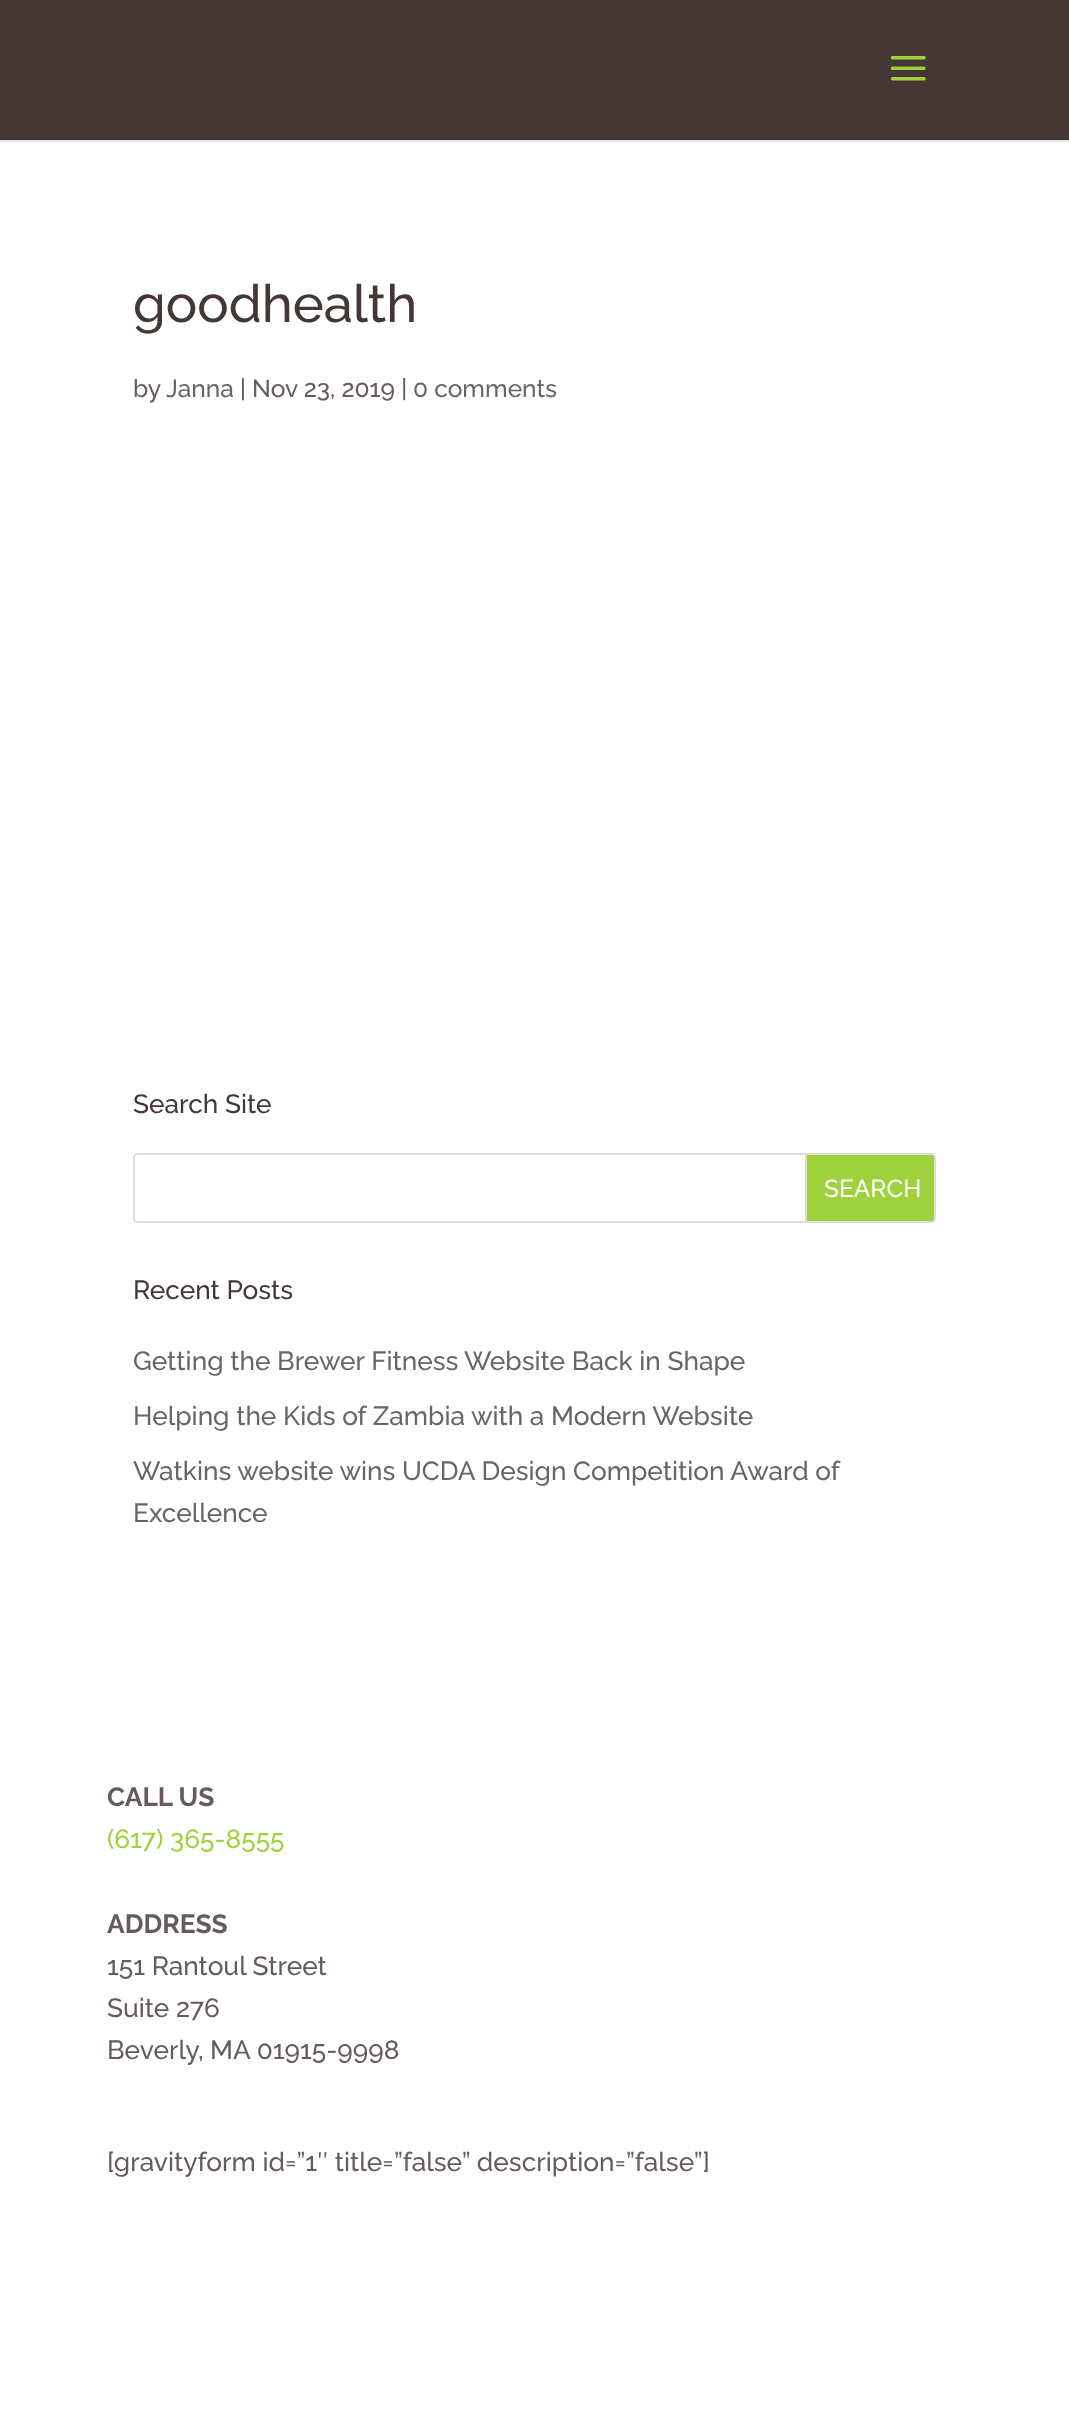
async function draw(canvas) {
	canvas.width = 1069;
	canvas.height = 2431;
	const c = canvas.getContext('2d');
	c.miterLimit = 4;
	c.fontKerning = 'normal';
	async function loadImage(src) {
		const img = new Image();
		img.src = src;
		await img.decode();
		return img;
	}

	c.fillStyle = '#fff';
	c.fillRect(0, 0, 1069, 2431);
	c.fillStyle = '#e6e6e6';
	c.fillRect(0, 140, 1069, 2);
	c.fillStyle = '#443736';
	c.fillRect(0, 0, 1069, 140);
	c.drawImage(await loadImage('img1.png'), 890, 56, 36, 25);
	c.font = '500 52.5px Raleway';
	c.fillText('goodhealth', 133, 322);
	c.font = '500 24.5px Raleway';
	c.fillStyle = '#665b5a';
	c.fillText('by', 133, 397);
	c.fillStyle = '#666';
	c.fillText('Janna', 166, 397);
	c.fillStyle = '#665b5a';
	c.fillText('| Nov 23, 2019 |', 240, 397);
	c.fillStyle = '#666';
	c.fillText('0 comments', 413, 397);
	c.font = '500 26.25px Raleway';
	c.fillStyle = '#443736';
	c.fillText('Search Site', 133, 1113);
	c.beginPath();
	c.roundRect(134, 1154, 801, 68, 4);
	c.strokeStyle = '#ddd';
	c.lineWidth = 2;
	c.stroke();
	c.fillStyle = '#9fd13c';
	c.beginPath();
	c.roundRect(806, 1154, 129, 68, [0, 4, 4, 0]);
	c.fill();
	c.stroke();
	c.font = '500 24.5px Raleway';
	c.fillStyle = '#fff';
	c.fillText('SEARCH', 824, 1197);
	c.font = '500 26.25px Raleway';
	c.fillStyle = '#443736';
	c.fillText('Recent Posts', 133, 1299);
	c.fillStyle = '#666';
	for (const [text, x, y] of [
		['Getting the Brewer Fitness Website Back in Shape', 133, 1370],
		['Helping the Kids of Zambia with a Modern Website', 133, 1425],
		['Watkins website wins UCDA Design Competition Award of', 133, 1480],
		['Excellence', 133, 1522],
	]) {
		c.fillText(text, x, y);
	}
	c.font = 'bold 26.25px Raleway';
	c.fillStyle = '#665b5a';
	c.fillText('CALL US', 107, 1806);
	c.font = '500 26.25px Raleway';
	c.fillStyle = '#9fd13c';
	c.fillText('(617) 365-8555', 107, 1848);
	c.font = 'bold 26.25px Raleway';
	c.fillStyle = '#665b5a';
	c.fillText('ADDRESS', 107, 1933);
	c.font = '500 26.25px Raleway';
	for (const [text, x, y] of [
		['151 Rantoul Street', 107, 1975],
		['Suite 276', 107, 2017],
		['Beverly, MA 01915-9998', 107, 2059],
		['[gravityform id=”1″ title=”false” description=”false”]', 107, 2171],
	]) {
		c.fillText(text, x, y);
	}
}

draw(document.querySelector('canvas'));
